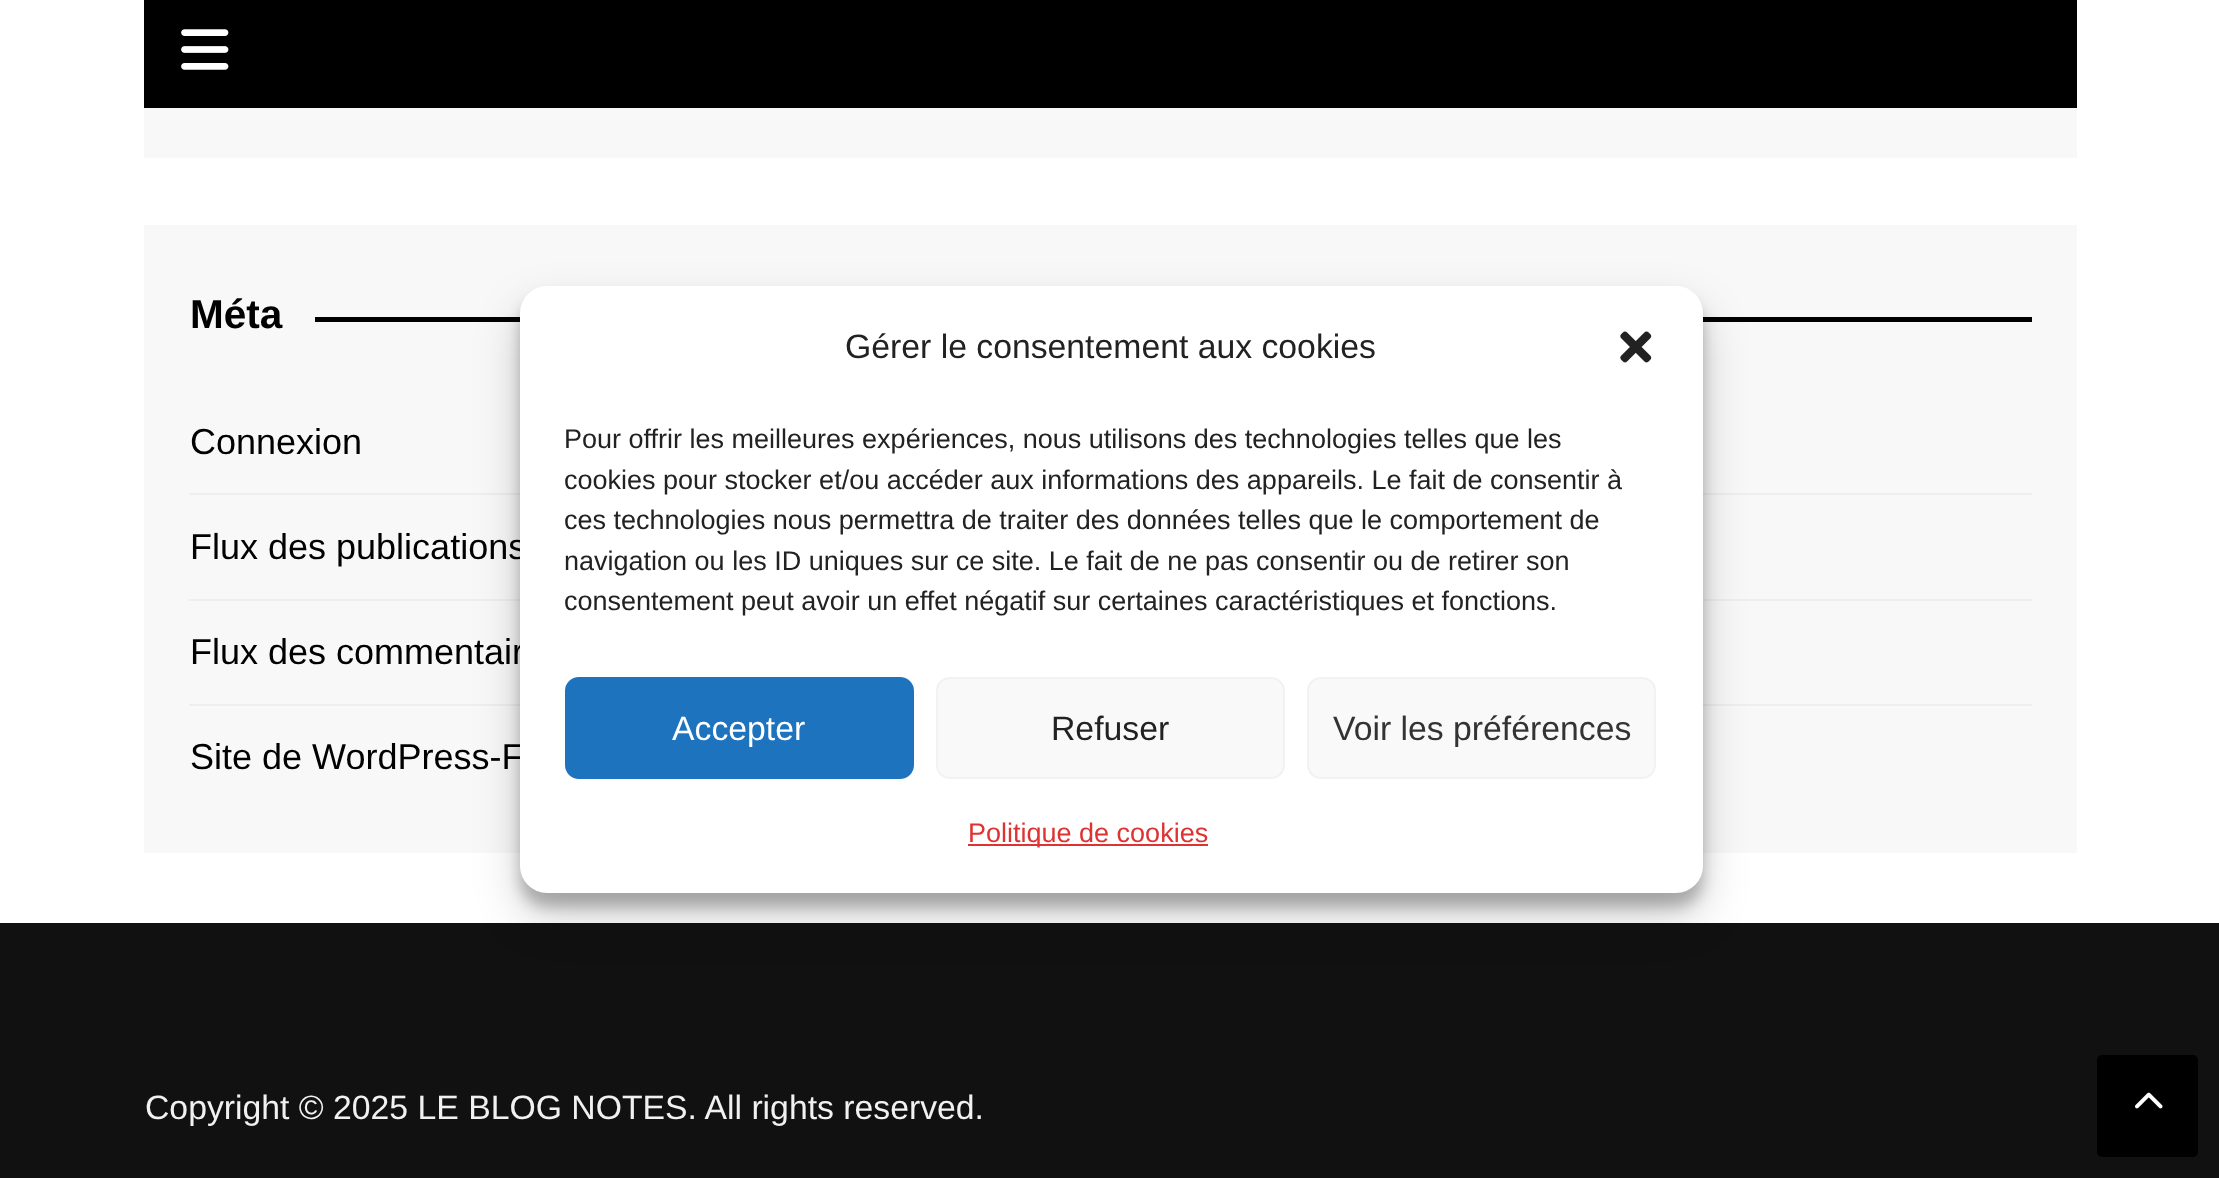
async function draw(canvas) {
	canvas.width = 2219;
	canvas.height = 1178;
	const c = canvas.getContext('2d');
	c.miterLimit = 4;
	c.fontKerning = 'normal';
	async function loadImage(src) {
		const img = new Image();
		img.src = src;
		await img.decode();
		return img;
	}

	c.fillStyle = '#fff';
	c.fillRect(0, 0, 2219, 1178);
	c.fillStyle = '#000';
	c.fillRect(144, 0, 1933, 108);
	c.drawImage(await loadImage('img1.png'), 181, 29, 48, 41);
	c.fillStyle = '#f8f8f8';
	c.fillRect(144, 108, 1933, 50);
	c.fillRect(144, 225, 1933, 628);
	c.font = 'bold 40.5px Liberation Sans';
	c.fillStyle = '#010101';
	c.fillText('Méta', 190, 328);
	c.fillStyle = '#000';
	c.fillRect(315, 317, 1717, 5);
	c.fillStyle = '#eee';
	c.fillRect(189, 493, 1843, 2);
	c.font = '36px Liberation Sans';
	c.fillStyle = '#010101';
	c.fillText('Connexion', 190, 454);
	c.fillStyle = '#eee';
	c.fillRect(189, 599, 1843, 2);
	c.fillStyle = '#010101';
	c.fillText('Flux des publications', 190, 559);
	c.fillStyle = '#eee';
	c.fillRect(189, 704, 1843, 2);
	c.fillStyle = '#010101';
	c.fillText('Flux des commentair', 190, 664);
	c.fillText('Site de WordPress-F', 190, 769);
	c.fillStyle = '#111';
	c.fillRect(0, 923, 2219, 255);
	c.font = '33.75px Liberation Sans';
	c.fillStyle = '#f1f1f1';
	c.fillText('Copyright © 2025 LE BLOG NOTES. All rights reserved.', 145, 1119);
	c.fillStyle = '#0000003b';
	c.filter = 'blur(7px)';
	c.beginPath();
	c.roundRect(520, 299, 1183, 608, 27);
	c.fill();
	c.filter = 'none';
	c.fillStyle = '#00000030';
	c.filter = 'blur(22.5px)';
	c.beginPath();
	c.roundRect(520, 308, 1183, 608, 27);
	c.fill();
	c.filter = 'none';
	c.fillStyle = '#fff';
	c.beginPath();
	c.roundRect(520, 286, 1183, 607, 27);
	c.fill();
	c.fillStyle = '#222';
	c.fillText('Gérer le consentement aux cookies', 845, 358);
	c.drawImage(await loadImage('img2.png'), 1620, 331, 32, 32);
	c.font = '27px Liberation Sans';
	c.fillText('Pour offrir les meilleures expériences, nous utilisons des technologies telles que les', 564, 448);
	c.save();
	c.beginPath();
	c.rect(565, 419, 1093, 213);
	c.clip();
	c.fillText('cookies pour stocker et/ou accéder aux informations des appareils. Le fait de consentir à', 564, 489);
	c.fillText('ces technologies nous permettra de traiter des données telles que le comportement de', 564, 529);
	c.restore();
	c.fillText('navigation ou les ID uniques sur ce site. Le fait de ne pas consentir ou de retirer son', 564, 570);
	c.save();
	c.beginPath();
	c.rect(565, 419, 1093, 213);
	c.clip();
	c.fillText('consentement peut avoir un effet négatif sur certaines caractéristiques et fonctions.', 564, 610);
	c.restore();
	c.fillStyle = '#1e73be';
	c.beginPath();
	c.roundRect(566, 678, 347, 100, 13);
	c.fill();
	c.strokeStyle = '#1e73be';
	c.lineWidth = 2;
	c.stroke();
	c.font = '33.75px Liberation Sans';
	c.fillStyle = '#fff';
	c.fillText('Accepter', 672, 740);
	c.fillStyle = '#f9f9f9';
	c.beginPath();
	c.roundRect(937, 678, 347, 100, 13);
	c.fill();
	c.strokeStyle = '#f2f2f2';
	c.stroke();
	c.fillStyle = '#222';
	c.fillText('Refuser', 1051, 740);
	c.fillStyle = '#f9f9f9';
	c.beginPath();
	c.roundRect(1308, 678, 347, 100, 13);
	c.fill();
	c.stroke();
	c.fillStyle = '#333';
	c.fillText('Voir les préférences', 1333, 740);
	c.fillStyle = '#d33';
	c.fillRect(968, 844, 240, 2);
	c.font = '27px Liberation Sans';
	c.fillText('Politique de cookies', 968, 842);
	c.fillStyle = '#000';
	c.beginPath();
	c.roundRect(2097, 1055, 101, 102, 5);
	c.fill();
	c.drawImage(await loadImage('img3.png'), 2135, 1092, 28, 17);
}

draw(document.querySelector('canvas'));
